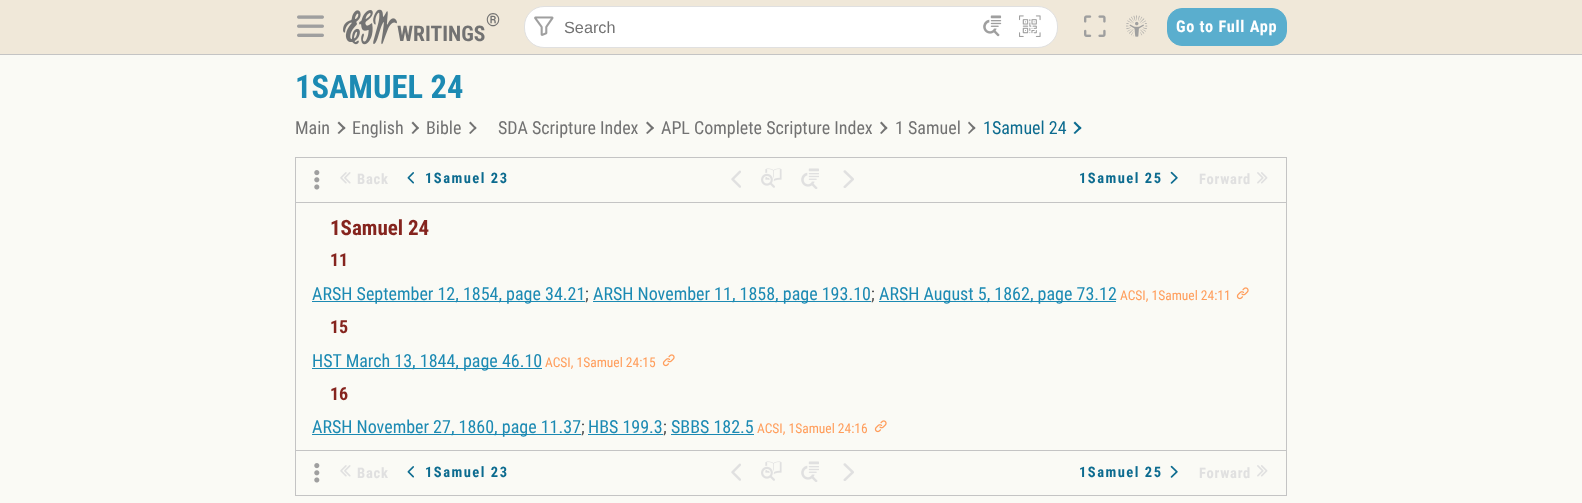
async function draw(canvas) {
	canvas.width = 1582;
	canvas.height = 503;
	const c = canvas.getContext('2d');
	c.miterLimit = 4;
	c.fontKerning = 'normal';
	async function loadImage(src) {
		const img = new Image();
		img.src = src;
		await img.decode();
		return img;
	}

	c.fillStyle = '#fafaf5';
	c.fillRect(0, 0, 1582, 503);
	c.fillStyle = '#f0e8d9';
	c.fillRect(0, 0, 1582, 54);
	c.fillStyle = '#c4c4c4';
	c.fillRect(0, 54, 1582, 1);
	c.drawImage(await loadImage('img1.png'), 297, 15, 27, 22);
	c.drawImage(await loadImage('img2.png'), 343, 9, 54, 36);
	c.font = 'bold 18px Roboto Condensed';
	c.fillStyle = '#727272';
	c.fillText('®', 486, 26);
	c.font = 'bold 21.5px Roboto Condensed';
	c.fillText('WRITINGS', 397, 41);
	c.fillStyle = '#fff';
	c.beginPath();
	c.roundRect(524.5, 6.5, 533, 41, 19.5);
	c.fill();
	c.strokeStyle = '#e0e0e0';
	c.stroke();
	c.drawImage(await loadImage('img3.png'), 534, 16, 20, 20);
	c.font = '16.25px Liberation Sans';
	c.fillStyle = '#727272';
	c.fillText('Search', 564, 33);
	c.drawImage(await loadImage('img4.png'), 983, 15, 19, 22);
	c.drawImage(await loadImage('img5.png'), 1019, 15, 22, 22);
	c.drawImage(await loadImage('img6.png'), 1084, 15, 22, 22);
	c.drawImage(await loadImage('img7.png'), 1126, 15, 22, 22);
	c.fillStyle = '#5aaece';
	c.beginPath();
	c.roundRect(1167.5, 8.5, 119, 37, 14.5);
	c.fill();
	c.strokeStyle = '#5aaece';
	c.stroke();
	c.letterSpacing = '0.75px';
	c.font = 'bold 16.25px Roboto Condensed';
	c.fillStyle = '#fff';
	c.fillText('Go to Full App', 1176, 32);
	c.letterSpacing = '0px';
	c.font = 'bold 32.5px Roboto Condensed';
	c.fillStyle = '#1c8ab3';
	c.fillText('1SAMUEL 24', 295, 98);
	c.font = '18px Roboto Condensed';
	c.fillStyle = '#727272';
	c.fillText('Main', 295, 134);
	c.beginPath();
	c.moveTo(337.5, 123);
	c.lineTo(339, 121.5);
	c.lineTo(345.5, 128);
	c.lineTo(344, 129.5);
	c.closePath();
	c.fill();
	c.beginPath();
	c.moveTo(337.5, 133);
	c.lineTo(344, 126.5);
	c.lineTo(345.5, 128);
	c.lineTo(339, 134);
	c.closePath();
	c.fill();
	c.fillText('English', 352, 134);
	c.beginPath();
	c.moveTo(411.5, 123);
	c.lineTo(413, 121.5);
	c.lineTo(419, 128);
	c.lineTo(417.5, 129.5);
	c.closePath();
	c.fill();
	c.beginPath();
	c.moveTo(411.5, 133);
	c.lineTo(417.5, 126.5);
	c.lineTo(419, 128);
	c.lineTo(413, 134);
	c.closePath();
	c.fill();
	c.fillText('Bible', 426, 134);
	c.beginPath();
	c.moveTo(469, 123);
	c.lineTo(470.5, 121.5);
	c.lineTo(476.5, 128);
	c.lineTo(475.5, 129.5);
	c.closePath();
	c.fill();
	c.beginPath();
	c.moveTo(469, 133);
	c.lineTo(475.5, 126.5);
	c.lineTo(476.5, 128);
	c.lineTo(470.5, 134);
	c.closePath();
	c.fill();
	c.fillText('SDA Scripture Index', 498, 134);
	c.beginPath();
	c.moveTo(646, 123);
	c.lineTo(647.5, 121.5);
	c.lineTo(654, 128);
	c.lineTo(652.5, 129.5);
	c.closePath();
	c.fill();
	c.beginPath();
	c.moveTo(646, 133);
	c.lineTo(652.5, 126.5);
	c.lineTo(654, 128);
	c.lineTo(647.5, 134);
	c.closePath();
	c.fill();
	c.fillText('APL Complete Scripture Index', 661, 134);
	c.beginPath();
	c.moveTo(880, 123);
	c.lineTo(881.5, 121.5);
	c.lineTo(887.5, 128);
	c.lineTo(886, 129.5);
	c.closePath();
	c.fill();
	c.beginPath();
	c.moveTo(880, 133);
	c.lineTo(886, 126.5);
	c.lineTo(887.5, 128);
	c.lineTo(881.5, 134);
	c.closePath();
	c.fill();
	c.fillText('1 Samuel', 895, 134);
	c.beginPath();
	c.moveTo(968, 123);
	c.lineTo(969, 121.5);
	c.lineTo(975.5, 128);
	c.lineTo(974, 129.5);
	c.closePath();
	c.fill();
	c.beginPath();
	c.moveTo(968, 133);
	c.lineTo(974, 126.5);
	c.lineTo(975.5, 128);
	c.lineTo(969, 134);
	c.closePath();
	c.fill();
	c.fillStyle = '#0c6b8f';
	c.fillText('1Samuel 24', 983, 134);
	c.beginPath();
	c.moveTo(1073.5, 123);
	c.lineTo(1075, 121.5);
	c.lineTo(1081.5, 128);
	c.lineTo(1080, 129.5);
	c.closePath();
	c.fill();
	c.beginPath();
	c.moveTo(1073.5, 133);
	c.lineTo(1080, 126.5);
	c.lineTo(1081.5, 128);
	c.lineTo(1075, 134);
	c.closePath();
	c.fill();
	c.strokeStyle = '#c4c4c4';
	c.strokeRect(295.5, 157.5, 991, 338);
	c.fillStyle = '#c4c4c4';
	c.fillRect(296, 202, 990, 1);
	c.drawImage(await loadImage('img8.png'), 314, 170, 6, 20);
	c.drawImage(await loadImage('img9.png'), 340, 172, 11, 12);
	c.letterSpacing = '0.75px';
	c.font = 'bold 14.5px Roboto Condensed';
	c.fillStyle = '#e0e0e0';
	c.fillText('Back', 357, 184);
	c.drawImage(await loadImage('img10.png'), 407, 172, 7, 12);
	c.letterSpacing = '1.5px';
	c.fillStyle = '#0c6b8f';
	c.fillText('1Samuel 23', 425, 183);
	c.drawImage(await loadImage('img11.png'), 731, 170, 10, 18);
	c.drawImage(await loadImage('img12.png'), 761, 168, 21, 20);
	c.drawImage(await loadImage('img13.png'), 801, 168, 18, 21);
	c.drawImage(await loadImage('img14.png'), 843, 170, 11, 18);
	c.fillText('1Samuel 25', 1079, 183);
	c.drawImage(await loadImage('img15.png'), 1170, 171, 8, 13);
	c.letterSpacing = '0.75px';
	c.fillStyle = '#e0e0e0';
	c.fillText('Forward', 1199, 184);
	c.drawImage(await loadImage('img16.png'), 1257, 172, 11, 12);
	c.letterSpacing = '0px';
	c.font = 'bold 21px Roboto Condensed';
	c.fillStyle = '#85241e';
	c.fillText('1Samuel 24', 330, 235);
	c.font = 'bold 18px Roboto Condensed';
	c.fillText('11', 330, 266);
	c.fillStyle = '#1c8ab3';
	c.fillRect(312, 301, 273, 1);
	c.font = '18px Roboto Condensed';
	c.fillText('ARSH September 12, 1854, page 34.21', 312, 300);
	c.fillStyle = '#525252';
	c.fillText(';', 585, 300);
	c.fillStyle = '#1c8ab3';
	c.fillRect(593, 301, 278, 1);
	c.fillText('ARSH November 11, 1858, page 193.10', 593, 300);
	c.fillStyle = '#525252';
	c.fillText(';', 871, 300);
	c.fillStyle = '#1c8ab3';
	c.fillRect(879, 301, 237, 1);
	c.fillText('ARSH August 5, 1862, page 73.12', 879, 300);
	c.font = '13.5px Roboto Condensed';
	c.fillStyle = '#ff9d5b';
	c.fillText('ACSI, 1Samuel 24:11', 1120, 300);
	c.drawImage(await loadImage('img17.png'), 1236, 287, 13, 13);
	c.font = 'bold 18px Roboto Condensed';
	c.fillStyle = '#85241e';
	c.fillText('15', 330, 333);
	c.fillStyle = '#1c8ab3';
	c.fillRect(312, 368, 230, 1);
	c.font = '18px Roboto Condensed';
	c.fillText('HST March 13, 1844, page 46.10', 312, 367);
	c.font = '13.5px Roboto Condensed';
	c.fillStyle = '#ff9d5b';
	c.fillText('ACSI, 1Samuel 24:15', 545, 367);
	c.drawImage(await loadImage('img17.png'), 662, 354, 13, 13);
	c.font = 'bold 18px Roboto Condensed';
	c.fillStyle = '#85241e';
	c.fillText('16', 330, 400);
	c.fillStyle = '#1c8ab3';
	c.fillRect(312, 434, 269, 1);
	c.font = '18px Roboto Condensed';
	c.fillText('ARSH November 27, 1860, page 11.37', 312, 433);
	c.fillStyle = '#525252';
	c.fillText(';', 581, 433);
	c.fillStyle = '#1c8ab3';
	c.fillText('HBS 199.3', 588, 433);
	c.fillStyle = '#525252';
	c.fillText(';', 663, 433);
	c.fillStyle = '#1c8ab3';
	c.fillRect(588, 434, 75, 1);
	c.fillRect(671, 434, 83, 1);
	c.fillText('SBBS 182.5', 671, 433);
	c.font = '13.5px Roboto Condensed';
	c.fillStyle = '#ff9d5b';
	c.fillText('ACSI, 1Samuel 24:16', 757, 433);
	c.drawImage(await loadImage('img17.png'), 874, 420, 13, 13);
	c.fillStyle = '#c4c4c4';
	c.fillRect(296, 450, 990, 1);
	c.drawImage(await loadImage('img8.png'), 314, 463, 6, 20);
	c.drawImage(await loadImage('img9.png'), 340, 465, 11, 12);
	c.letterSpacing = '0.75px';
	c.font = 'bold 14.5px Roboto Condensed';
	c.fillStyle = '#e0e0e0';
	c.fillText('Back', 357, 478);
	c.drawImage(await loadImage('img10.png'), 407, 466, 7, 12);
	c.letterSpacing = '1.5px';
	c.fillStyle = '#0c6b8f';
	c.fillText('1Samuel 23', 425, 477);
	c.drawImage(await loadImage('img11.png'), 731, 463, 10, 18);
	c.drawImage(await loadImage('img12.png'), 761, 461, 21, 20);
	c.drawImage(await loadImage('img13.png'), 801, 461, 18, 21);
	c.drawImage(await loadImage('img14.png'), 843, 463, 11, 18);
	c.fillText('1Samuel 25', 1079, 477);
	c.drawImage(await loadImage('img15.png'), 1170, 465, 8, 13);
	c.letterSpacing = '0.75px';
	c.fillStyle = '#e0e0e0';
	c.fillText('Forward', 1199, 478);
	c.drawImage(await loadImage('img16.png'), 1257, 465, 11, 12);
}

draw(document.querySelector('canvas'));
